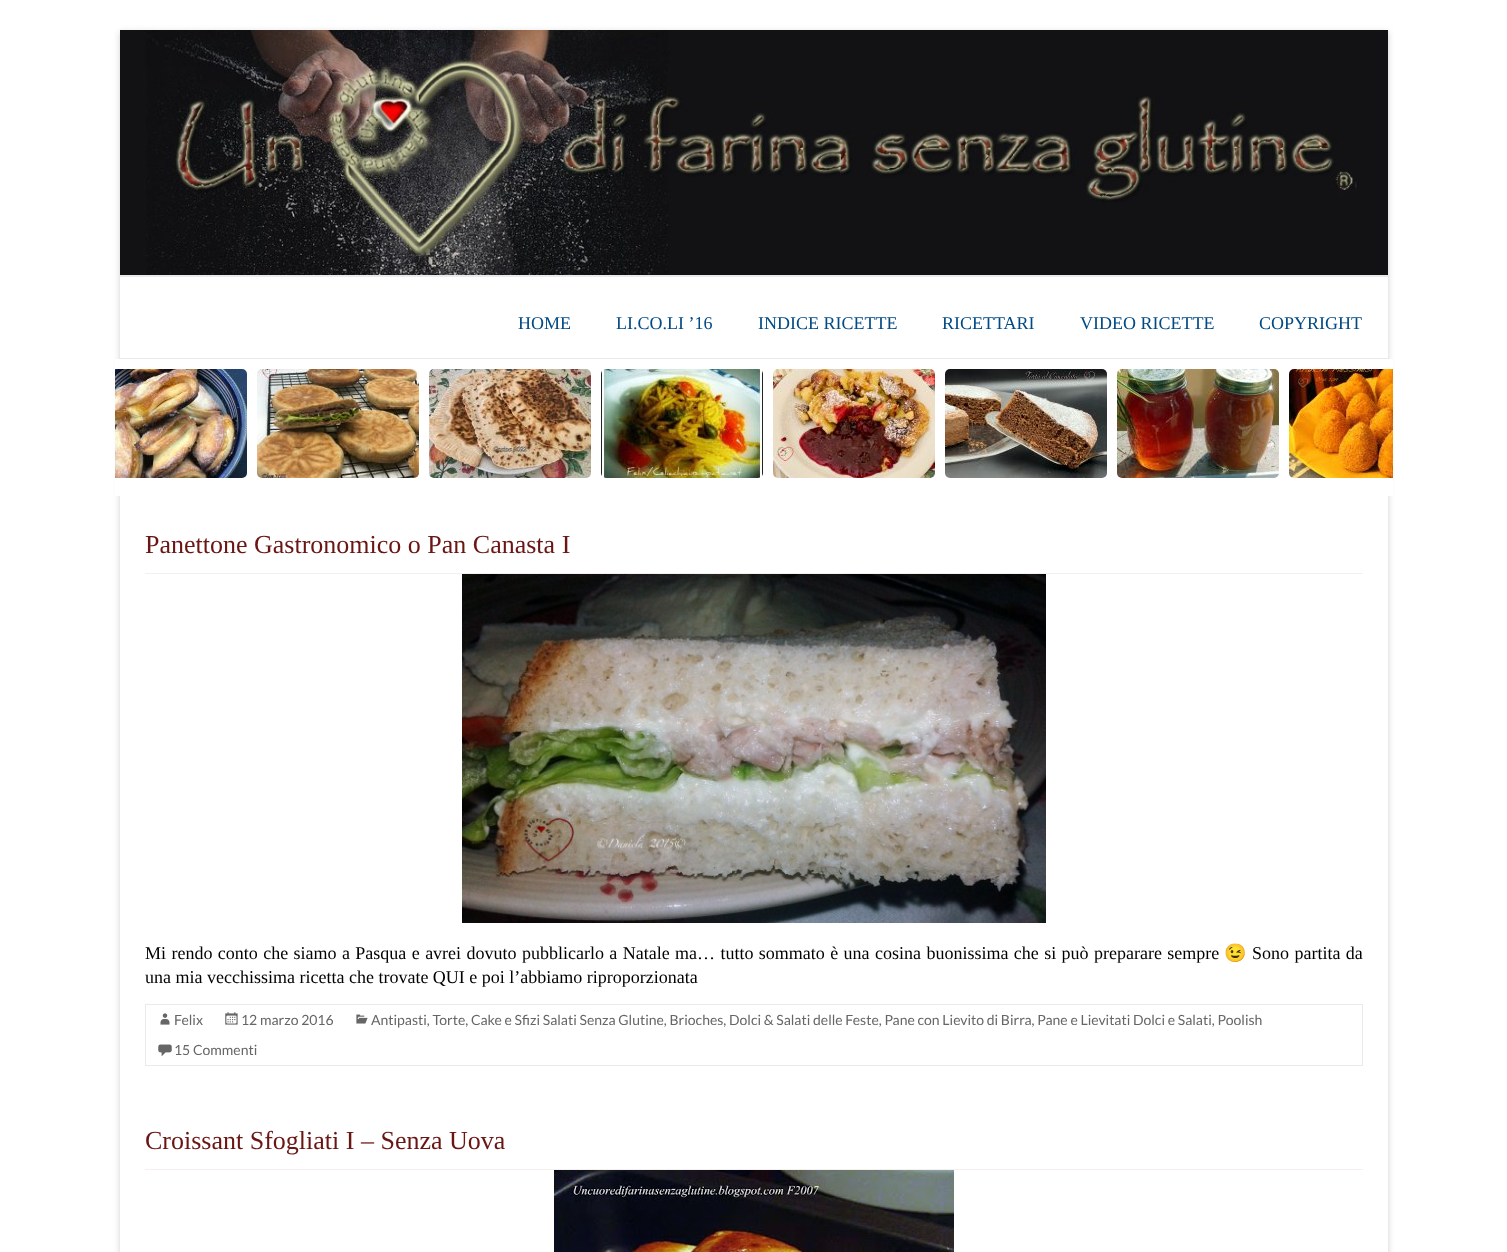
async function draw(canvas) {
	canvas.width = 1507;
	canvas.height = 1252;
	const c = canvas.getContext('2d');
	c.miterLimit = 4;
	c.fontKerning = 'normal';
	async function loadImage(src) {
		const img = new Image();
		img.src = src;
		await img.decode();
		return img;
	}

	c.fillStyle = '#fff';
	c.fillRect(0, 0, 1507, 1252);
	c.save();
	c.beginPath();
	c.moveTo(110, 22);
	c.lineTo(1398, 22);
	c.lineTo(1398, 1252);
	c.lineTo(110, 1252);
	c.closePath();
	c.moveTo(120, 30);
	c.lineTo(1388, 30);
	c.lineTo(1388, 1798);
	c.lineTo(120, 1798);
	c.closePath();
	c.clip('evenodd');
	c.fillStyle = '#6464644d';
	c.filter = 'blur(3px)';
	c.beginPath();
	c.rect(120, 32, 1268, 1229);
	c.fill();
	c.filter = 'none';
	c.restore();
	c.drawImage(await loadImage('img1.png'), 120, 30, 1268, 245);
	c.fillStyle = '#eaeaea';
	c.fillRect(120, 275, 1268, 2);
	c.fillRect(120, 358, 1268, 1);
	c.font = '18px Liberation Serif';
	c.fillStyle = '#014a86';
	for (const [text, x, y] of [
		['HOME', 518, 329],
		['LI.CO.LI ’16', 616, 329],
		['INDICE RICETTE', 758, 329],
		['RICETTARI', 942, 329],
		['VIDEO RICETTE', 1080, 329],
		['COPYRIGHT', 1259, 329],
	]) {
		c.fillText(text, x, y);
	}
	c.fillStyle = '#fff';
	c.fillRect(115, 359, 1278, 137);
	c.drawImage(await loadImage('img2.png'), 115, 369, 132, 109);
	c.drawImage(await loadImage('img3.png'), 257, 369, 162, 109);
	c.drawImage(await loadImage('img4.png'), 429, 369, 162, 109);
	c.drawImage(await loadImage('img5.png'), 601, 369, 162, 109);
	c.drawImage(await loadImage('img6.png'), 773, 369, 162, 109);
	c.drawImage(await loadImage('img7.png'), 945, 369, 162, 109);
	c.drawImage(await loadImage('img8.png'), 1117, 369, 162, 109);
	c.drawImage(await loadImage('img9.png'), 1289, 369, 104, 109);
	c.fillStyle = '#f5efef';
	c.fillRect(145, 573, 1218, 1);
	c.font = '26px Liberation Serif';
	c.fillStyle = '#6a1614';
	c.fillText('Panettone Gastronomico o Pan Canasta I', 145, 553);
	c.drawImage(await loadImage('img10.png'), 462, 574, 584, 349);
	c.wordSpacing = '0.9px';
	c.font = '18px Liberation Serif';
	c.fillStyle = '#000';
	c.fillText('Mi rendo conto che siamo a Pasqua e avrei dovuto pubblicarlo a Natale ma… tutto sommato è una cosina buonissima che si può preparare sempre', 145, 959);
	c.wordSpacing = '0px';
	c.font = '18px Noto Color Emoji';
	c.fillText('😉', 1224, 959);
	c.wordSpacing = '0.9px';
	c.font = '18px Liberation Serif';
	c.fillText('Sono partita da', 1252, 959);
	c.wordSpacing = '0px';
	c.fillText('una mia vecchissima ricetta che trovate QUI e poi l’abbiamo riproporzionata', 145, 983);
	c.strokeStyle = '#eaeaea';
	c.strokeRect(145.5, 1004.5, 1217, 61);
	c.drawImage(await loadImage('img11.png'), 160, 1013, 10, 12);
	c.font = '14px Lato';
	c.fillStyle = '#666';
	c.fillText('Felix', 174, 1025);
	c.drawImage(await loadImage('img12.png'), 225, 1012, 13, 13);
	c.fillText('12 marzo 2016', 241, 1025);
	c.drawImage(await loadImage('img13.png'), 356, 1014, 12, 10);
	c.fillText('Antipasti, Torte, Cake e Sfizi Salati Senza Glutine, Brioches, Dolci & Salati delle Feste, Pane con Lievito di Birra, Pane e Lievitati Dolci e Salati, Poolish', 371, 1025);
	c.drawImage(await loadImage('img14.png'), 158, 1044, 14, 13);
	c.fillText('15 Commenti', 174, 1055);
	c.fillStyle = '#f5efef';
	c.fillRect(145, 1169, 1218, 1);
	c.font = '26px Liberation Serif';
	c.fillStyle = '#6a1614';
	c.fillText('Croissant Sfogliati I – Senza Uova', 145, 1149);
	c.drawImage(await loadImage('img15.png'), 554, 1170, 400, 82);
}

draw(document.querySelector('canvas'));
